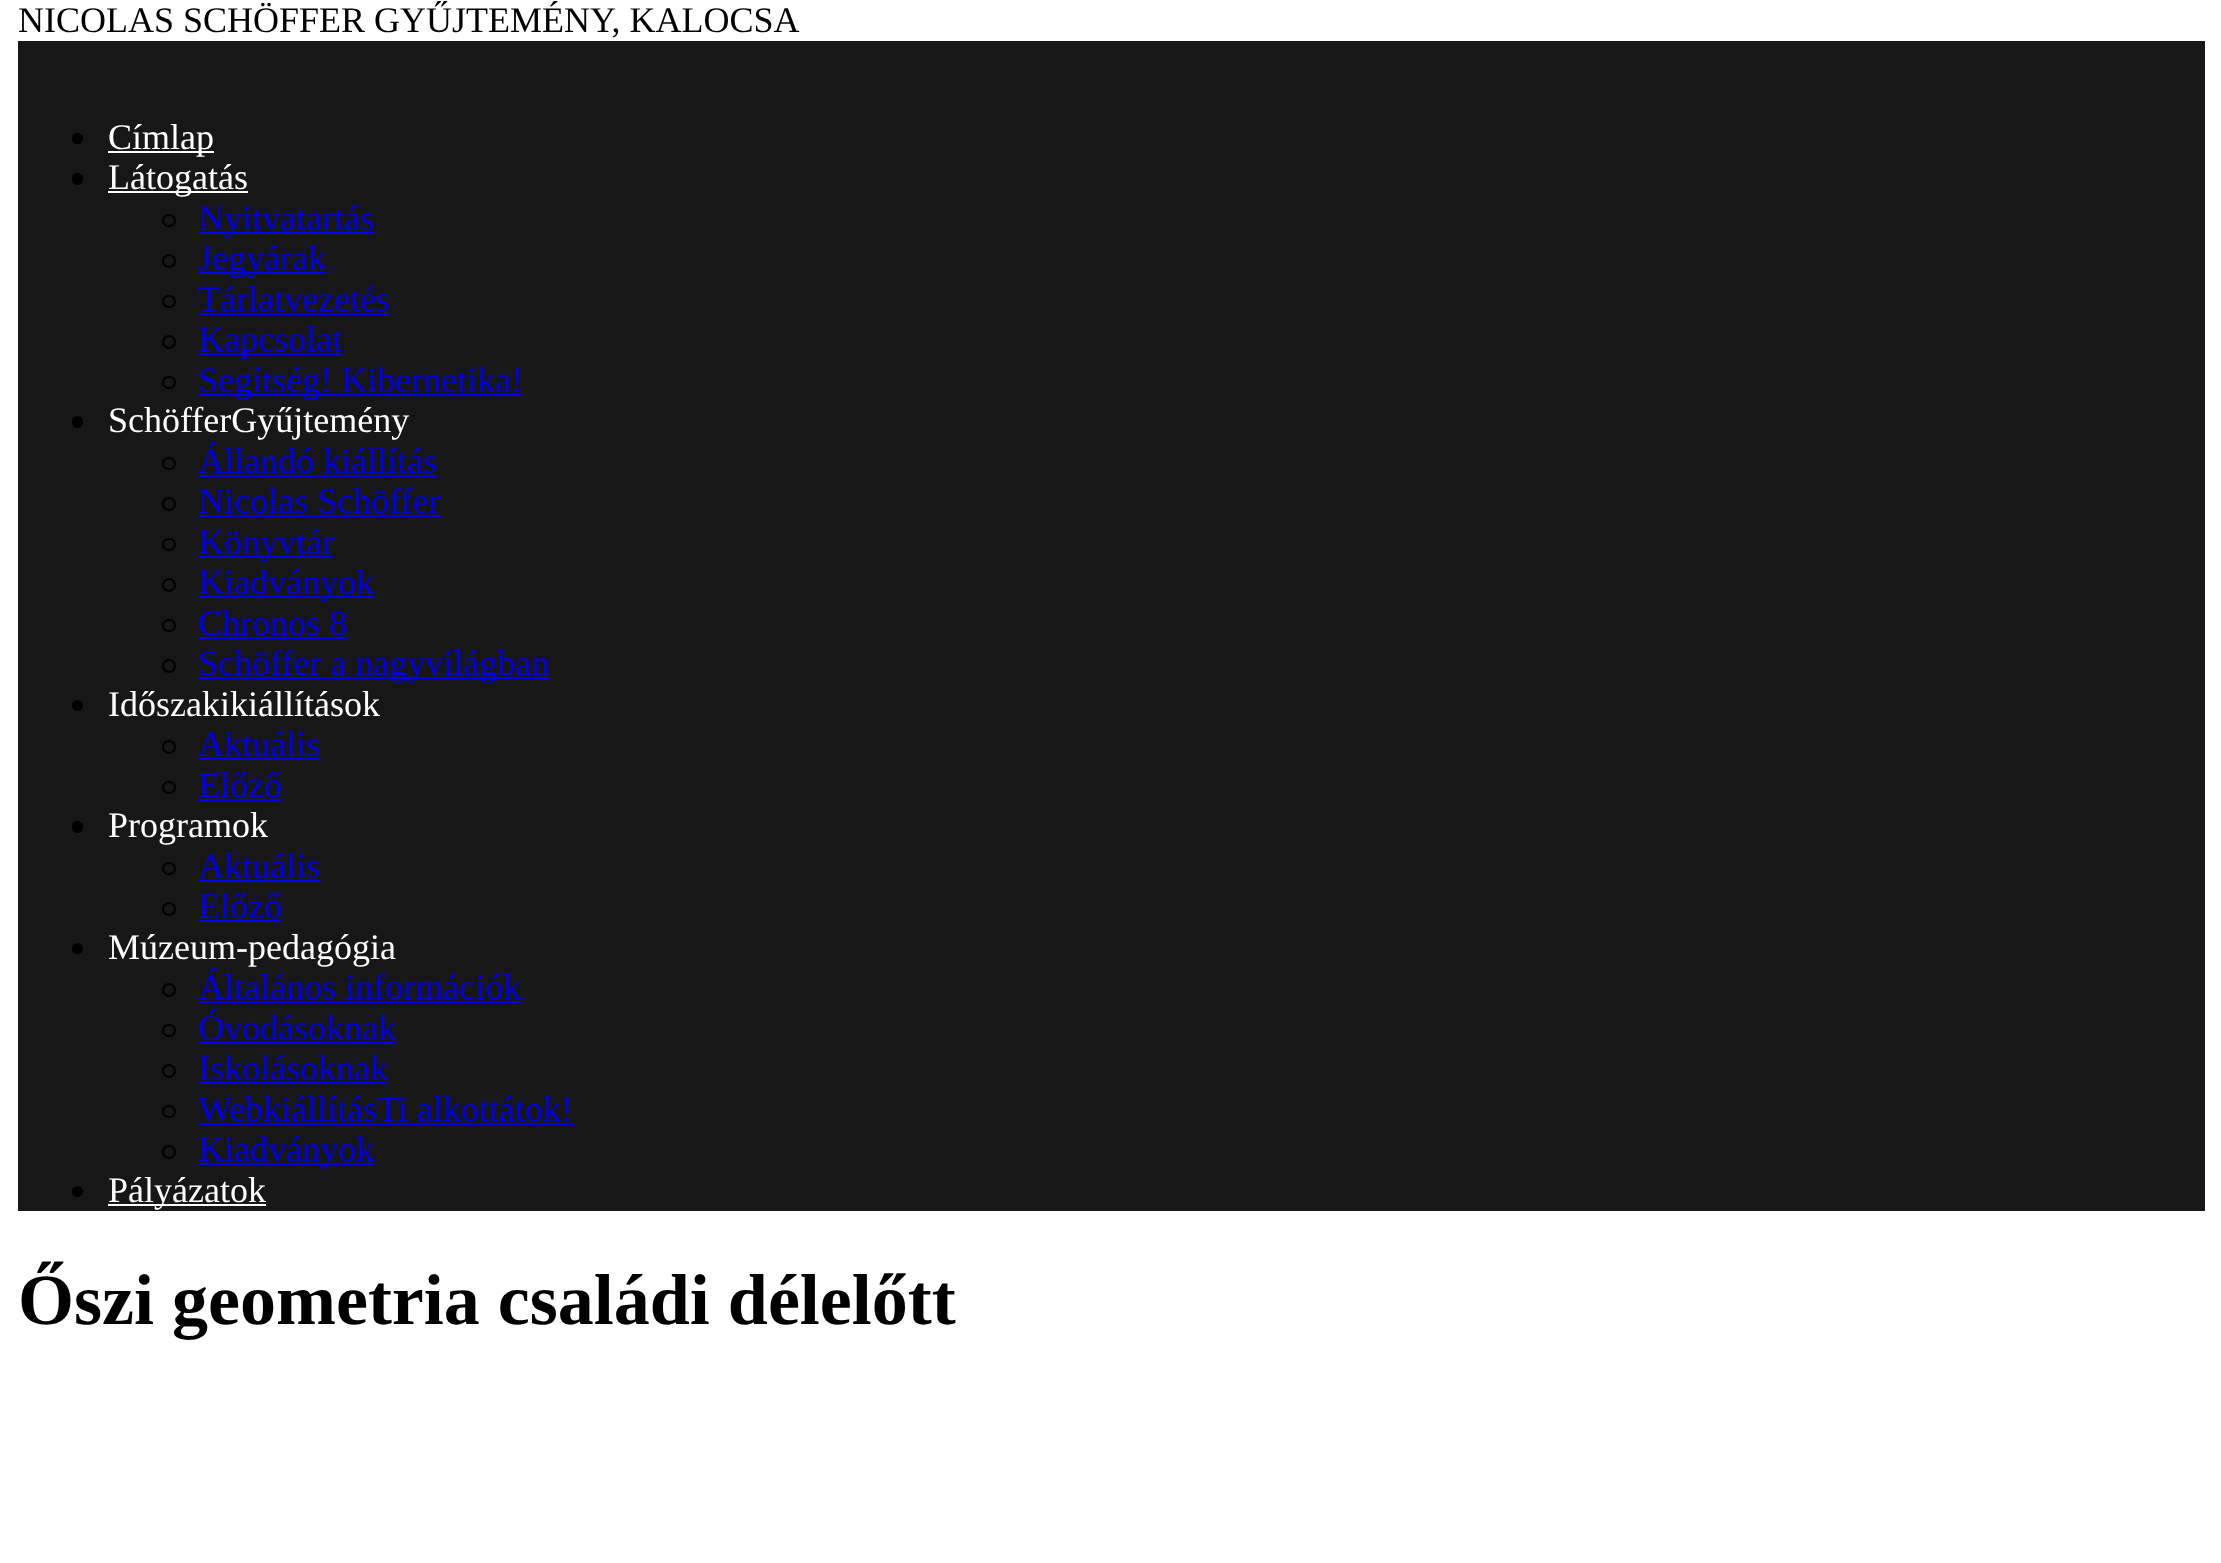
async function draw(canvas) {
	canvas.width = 2221;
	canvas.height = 1563;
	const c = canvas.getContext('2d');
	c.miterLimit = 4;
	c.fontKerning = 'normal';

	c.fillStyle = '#fff';
	c.fillRect(0, 0, 2221, 1563);
	c.font = '36px Liberation Serif';
	c.fillStyle = '#000';
	c.fillText('NICOLAS SCHÖFFER GYŰJTEMÉNY, KALOCSA', 18, 32);
	c.fillStyle = '#171717';
	c.fillRect(18, 41, 2187, 1170);
	c.fillStyle = '#000';
	c.beginPath();
	c.arc(77.5, 138.5, 5.5, 0, 2 * Math.PI);
	c.fill();
	c.fillStyle = '#fff';
	c.fillRect(108, 151, 106, 2);
	c.fillText('Címlap', 108, 149);
	c.fillStyle = '#000';
	c.beginPath();
	c.roundRect(72, 173, 11, 12, 5.5);
	c.fill();
	c.fillStyle = '#fff';
	c.fillRect(108, 191, 140, 2);
	c.fillText('Látogatás', 108, 189);
	c.beginPath();
	c.roundRect(163, 215, 12, 11, 5.5);
	c.strokeStyle = '#000';
	c.lineWidth = 2;
	c.stroke();
	c.fillStyle = '#00e';
	c.fillRect(198, 232, 176, 2);
	c.fillText('Nyitvatartás', 198, 230);
	c.beginPath();
	c.arc(169, 261, 6, 0, 2 * Math.PI);
	c.stroke();
	c.fillRect(198, 272, 128, 2);
	c.fillText('Jegyárak', 198, 270);
	c.beginPath();
	c.roundRect(163, 296, 12, 11, 5.5);
	c.stroke();
	c.fillText('Tárlatvezetés', 198, 311);
	c.fillRect(198, 313, 191, 2);
	c.beginPath();
	c.arc(169, 342, 6, 0, 2 * Math.PI);
	c.stroke();
	c.fillRect(198, 353, 144, 2);
	c.fillText('Kapcsolat', 198, 351);
	c.beginPath();
	c.roundRect(163, 377, 12, 11, 5.5);
	c.stroke();
	c.fillRect(198, 394, 324, 2);
	c.fillText('Segítség! Kibernetika!', 198, 392);
	c.fillStyle = '#000';
	c.beginPath();
	c.roundRect(72, 416, 11, 12, 5.5);
	c.fill();
	c.fillStyle = '#fff';
	c.fillText('SchöfferGyűjtemény', 108, 432);
	c.beginPath();
	c.roundRect(163, 458, 12, 11, 5.5);
	c.stroke();
	c.fillStyle = '#00e';
	c.fillText('Állandó kiállítás', 198, 473);
	c.fillRect(198, 475, 239, 2);
	c.beginPath();
	c.arc(169, 504, 6, 0, 2 * Math.PI);
	c.stroke();
	c.fillText('Nicolas Schöffer', 198, 513);
	c.fillRect(198, 515, 243, 2);
	c.beginPath();
	c.roundRect(163, 539, 12, 11, 5.5);
	c.stroke();
	c.fillRect(198, 556, 135, 2);
	c.fillText('Könyvtár', 198, 554);
	c.beginPath();
	c.arc(169, 585, 6, 0, 2 * Math.PI);
	c.stroke();
	c.fillRect(198, 596, 176, 2);
	c.fillText('Kiadványok', 198, 594);
	c.beginPath();
	c.roundRect(163, 620, 12, 11, 5.5);
	c.stroke();
	c.fillText('Chronos 8', 198, 635);
	c.fillRect(198, 637, 149, 2);
	c.beginPath();
	c.arc(169, 666, 6, 0, 2 * Math.PI);
	c.stroke();
	c.fillRect(198, 677, 351, 2);
	c.fillText('Schöffer a nagyvilágban', 198, 675);
	c.fillStyle = '#000';
	c.beginPath();
	c.arc(77.5, 705.5, 5.5, 0, 2 * Math.PI);
	c.fill();
	c.fillStyle = '#fff';
	c.fillText('Időszakikiállítások', 108, 716);
	c.beginPath();
	c.arc(169, 747, 6, 0, 2 * Math.PI);
	c.stroke();
	c.fillStyle = '#00e';
	c.fillText('Aktuális', 198, 756);
	c.fillRect(198, 758, 122, 2);
	c.beginPath();
	c.roundRect(163, 782, 12, 11, 5.5);
	c.stroke();
	c.fillText('Előző', 198, 797);
	c.fillRect(198, 799, 83, 2);
	c.fillStyle = '#000';
	c.beginPath();
	c.roundRect(72, 821, 11, 12, 5.5);
	c.fill();
	c.fillStyle = '#fff';
	c.fillText('Programok', 108, 837);
	c.beginPath();
	c.roundRect(163, 863, 12, 11, 5.5);
	c.stroke();
	c.fillStyle = '#00e';
	c.fillText('Aktuális', 198, 878);
	c.fillRect(198, 880, 122, 2);
	c.beginPath();
	c.arc(169, 909, 6, 0, 2 * Math.PI);
	c.stroke();
	c.fillText('Előző', 198, 918);
	c.fillRect(198, 920, 83, 2);
	c.fillStyle = '#000';
	c.beginPath();
	c.arc(77.5, 948.5, 5.5, 0, 2 * Math.PI);
	c.fill();
	c.fillStyle = '#fff';
	c.fillText('Múzeum-pedagógia', 108, 959);
	c.beginPath();
	c.arc(169, 990, 6, 0, 2 * Math.PI);
	c.stroke();
	c.fillStyle = '#00e';
	c.fillText('Általános információk', 198, 999);
	c.fillRect(198, 1001, 324, 2);
	c.beginPath();
	c.roundRect(163, 1025, 12, 11, 5.5);
	c.stroke();
	c.fillText('Óvodásoknak', 198, 1040);
	c.fillRect(198, 1042, 198, 2);
	c.beginPath();
	c.arc(169, 1071, 6, 0, 2 * Math.PI);
	c.stroke();
	c.fillText('Iskolásoknak', 198, 1080);
	c.fillRect(198, 1082, 189, 2);
	c.beginPath();
	c.roundRect(163, 1106, 12, 11, 5.5);
	c.stroke();
	c.fillText('WebkiállításTi alkottátok!', 198, 1121);
	c.fillRect(198, 1123, 376, 2);
	c.beginPath();
	c.arc(169, 1152, 6, 0, 2 * Math.PI);
	c.stroke();
	c.fillRect(198, 1163, 176, 2);
	c.fillText('Kiadványok', 198, 1161);
	c.fillStyle = '#000';
	c.beginPath();
	c.arc(77.5, 1191.5, 5.5, 0, 2 * Math.PI);
	c.fill();
	c.fillStyle = '#fff';
	c.fillRect(108, 1204, 158, 2);
	c.fillText('Pályázatok', 108, 1202);
	c.font = 'bold 72px Liberation Serif';
	c.fillStyle = '#000';
	c.fillText('Őszi geometria családi délelőtt', 18, 1324);
}

draw(document.querySelector('canvas'));
